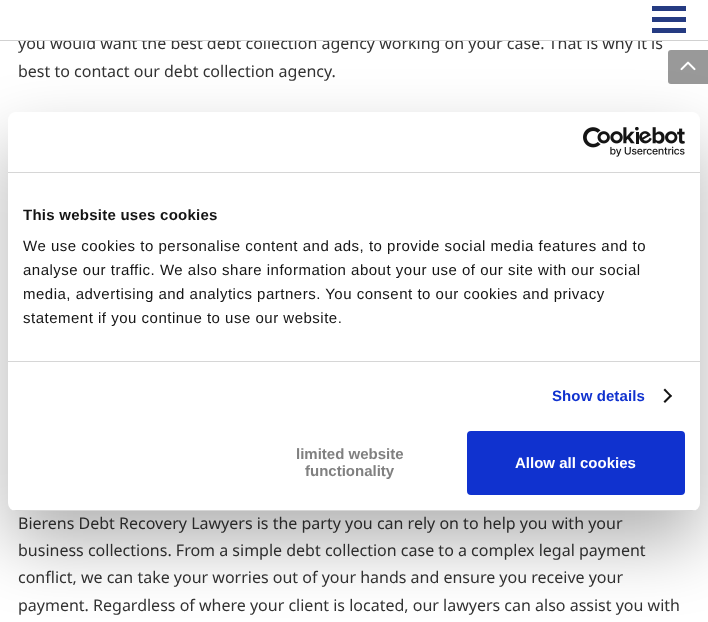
async function draw(canvas) {
	canvas.width = 708;
	canvas.height = 622;
	const c = canvas.getContext('2d');
	c.miterLimit = 4;
	c.fontKerning = 'normal';
	async function loadImage(src) {
		const img = new Image();
		img.src = src;
		await img.decode();
		return img;
	}

	c.fillStyle = '#fff';
	c.fillRect(0, 0, 708, 622);
	c.font = '16px Noto Sans';
	c.fillStyle = '#333';
	c.fillText('you would want the best debt collection agency working on your case. That is why it is', 18, 49);
	for (const [x, y, w, h, color] of [
		[83, 36, 571, 4, '#fff'],
		[0, 40, 708, 1, '#d1d1d1'],
		[652, 6, 34, 5, '#253b82'],
		[652, 17, 34, 5, '#253b82'],
		[652, 28, 34, 5, '#253b82'],
	]) {
		c.fillStyle = color;
		c.fillRect(x, y, w, h);
	}
	c.fillStyle = '#333';
	for (const [text, x, y] of [
		['best to contact our debt collection agency.', 18, 77],
		['Bierens Debt Recovery Lawyers is the party you can rely on to help you with your', 18, 529],
		['business collections. From a simple debt collection case to a complex legal payment', 18, 556],
		['conflict, we can take your worries out of your hands and ensure you receive your', 18, 583],
		['payment. Regardless of where your client is located, our lawyers can also assist you with', 18, 611],
	]) {
		c.fillText(text, x, y);
	}
	c.fillStyle = '#999';
	c.beginPath();
	c.roundRect(668, 50, 40, 34, [3, 0, 0, 3]);
	c.fill();
	c.drawImage(await loadImage('img1.png'), 680, 61, 16, 10);
	c.fillStyle = '#0000004d';
	c.filter = 'blur(34px)';
	c.beginPath();
	c.roundRect(8, 144, 692, 399, 8);
	c.fill();
	c.filter = 'none';
	c.fillStyle = '#fff';
	c.beginPath();
	c.roundRect(8, 112, 692, 399, 8);
	c.fill();
	c.fillStyle = '#d6d6d6';
	c.fillRect(8, 172, 692, 1);
	c.drawImage(await loadImage('img2.png'), 583, 127, 102, 30);
	c.fillRect(8, 361, 692, 1);
	c.letterSpacing = '0.25px';
	c.font = 'bold 15px Liberation Sans';
	c.fillStyle = '#141414';
	c.fillText('This website uses cookies', 23, 220);
	c.letterSpacing = '0.5px';
	c.font = '15px Liberation Sans';
	for (const [text, x, y] of [
		['We use cookies to personalise content and ads, to provide social media features and to', 23, 251],
		['analyse our traffic. We also share information about your use of our site with our social', 23, 275],
		['media, advertising and analytics partners. You consent to our cookies and privacy', 23, 299],
		['statement if you continue to use our website.', 23, 323],
	]) {
		c.fillText(text, x, y);
	}
	c.letterSpacing = '0.1px';
	c.font = 'bold 15px Liberation Sans';
	c.fillStyle = '#1032cf';
	c.fillText('Show details', 552, 401);
	c.fillStyle = '#141414';
	c.beginPath();
	c.moveTo(665, 388.5);
	c.lineTo(672, 396);
	c.lineTo(670.5, 397);
	c.lineTo(663.5, 390);
	c.closePath();
	c.fill();
	c.beginPath();
	c.moveTo(670.5, 394.5);
	c.lineTo(672, 396);
	c.lineTo(665, 403);
	c.lineTo(663.5, 401.5);
	c.closePath();
	c.fill();
	c.save();
	c.beginPath();
	c.roundRect(8, 112, 692, 399, 8);
	c.clip();
	c.fillStyle = '#d6d6d6';
	c.fillRect(8, 510, 692, 1);
	c.restore();
	c.letterSpacing = '0px';
	c.fillStyle = '#808080';
	c.fillText('limited website', 296, 459);
	c.fillText('functionality', 305, 476);
	c.fillStyle = '#1032cf';
	c.beginPath();
	c.roundRect(468, 432, 216, 62, 3);
	c.fill();
	c.strokeStyle = '#1032cf';
	c.lineWidth = 2;
	c.stroke();
	c.fillStyle = '#fff';
	c.fillText('Allow all cookies', 515, 468);
}

draw(document.querySelector('canvas'));
